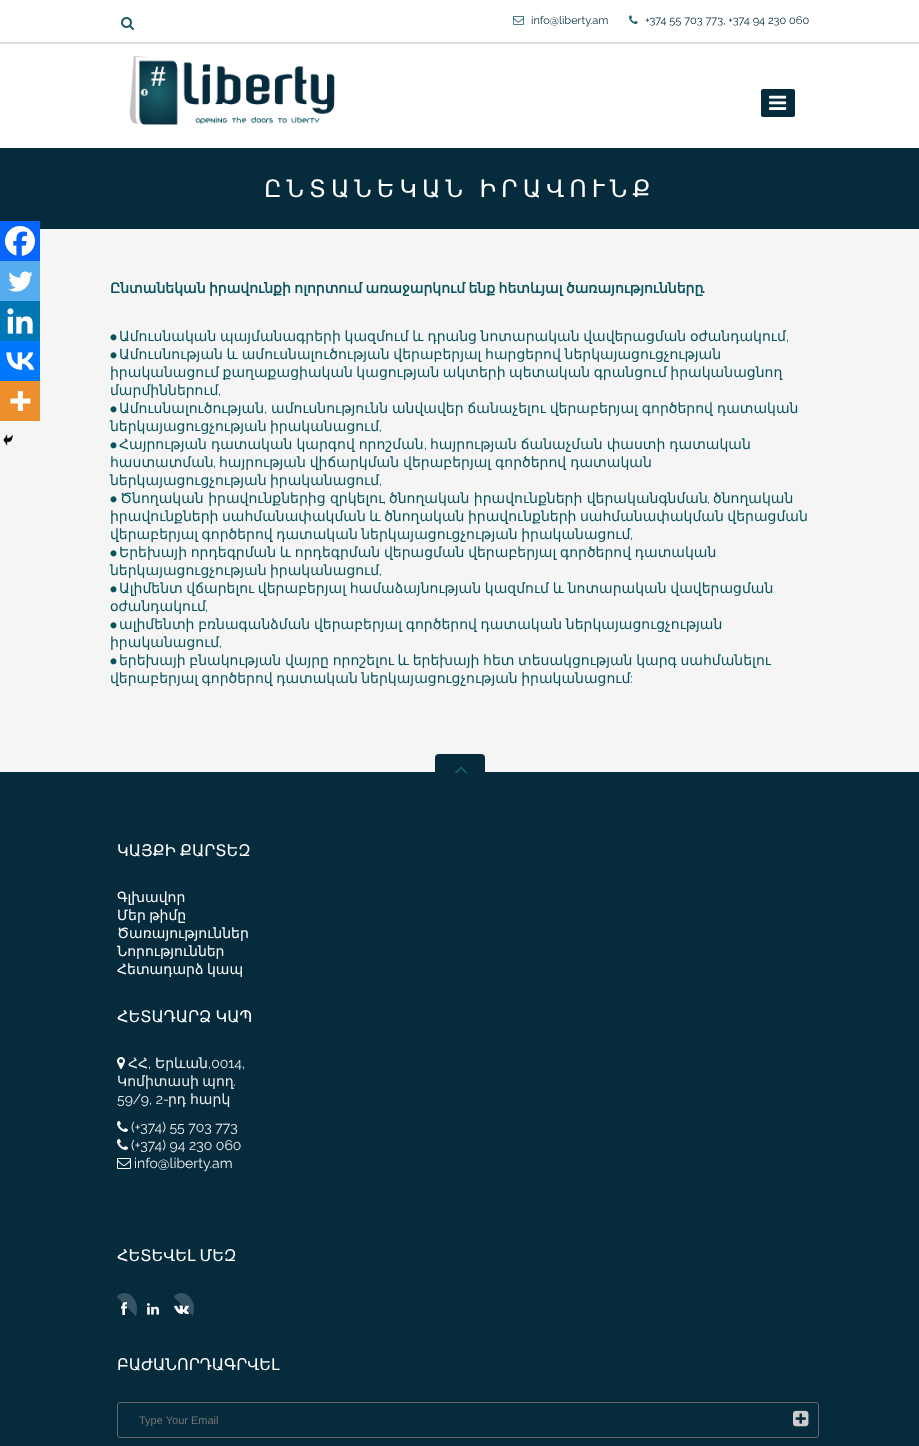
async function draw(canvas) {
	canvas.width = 919;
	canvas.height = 1446;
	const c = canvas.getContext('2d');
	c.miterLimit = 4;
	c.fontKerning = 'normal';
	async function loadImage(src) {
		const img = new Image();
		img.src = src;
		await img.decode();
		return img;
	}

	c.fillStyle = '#fff';
	c.fillRect(0, 0, 919, 1446);
	c.fillStyle = '#ddd';
	c.fillRect(0, 42, 919, 2);
	c.drawImage(await loadImage('img1.png'), 121, 17, 13, 13);
	c.drawImage(await loadImage('img2.png'), 513, 16, 11, 9);
	c.font = '11px Raleway';
	c.fillStyle = '#062b3d';
	c.fillText('info@liberty.am', 531, 24);
	c.drawImage(await loadImage('img3.png'), 629, 15, 9, 9);
	c.fillText('+374 55 703 773, +374 94 230 060', 645, 24);
	c.drawImage(await loadImage('img4.png'), 129, 56, 206, 69);
	c.beginPath();
	c.roundRect(761, 89, 34, 28, 2);
	c.fill();
	c.drawImage(await loadImage('img5.png'), 769, 95, 18, 15);
	c.fillRect(0, 148, 919, 81);
	c.letterSpacing = '5px';
	c.wordSpacing = '-1px';
	c.font = '24px DejaVu Sans';
	c.fillStyle = '#fff';
	c.fillText('ԸՆՏԱՆԵԿԱՆ ԻՐԱՎՈՒՆՔ', 264, 197);
	c.fillStyle = '#f5f5f5';
	c.fillRect(0, 229, 919, 543);
	c.fillStyle = '#0765fe';
	c.fillRect(0, 221, 40, 40);
	c.drawImage(await loadImage('img6.png'), 5, 226, 30, 30);
	c.fillStyle = '#55acee';
	c.fillRect(0, 261, 40, 40);
	c.drawImage(await loadImage('img7.png'), 8, 271, 25, 21);
	c.fillStyle = '#0077b5';
	c.fillRect(0, 301, 40, 40);
	c.drawImage(await loadImage('img8.png'), 7, 308, 26, 26);
	c.fillStyle = '#07f';
	c.fillRect(0, 341, 40, 40);
	c.drawImage(await loadImage('img9.png'), 6, 352, 29, 18);
	c.fillStyle = '#ee8e2d';
	c.fillRect(0, 381, 40, 40);
	c.drawImage(await loadImage('img10.png'), 10, 391, 21, 20);
	c.drawImage(await loadImage('img11.png'), 3, 434, 10, 12);
	c.letterSpacing = '0px';
	c.font = 'bold 14px DejaVu Sans';
	c.fillStyle = '#09545e';
	c.fillText('Ընտանեկան իրավունքի ոլորտում առաջարկում ենք հետևյալ ծառայությունները', 110, 293);
	c.wordSpacing = '0px';
	c.font = 'bold 14px Raleway';
	c.fillText('.', 702, 293);
	c.font = '14px FreeSans';
	c.fillText('⦁', 110, 341);
	c.wordSpacing = '-0.75px';
	c.font = '14px DejaVu Sans';
	c.fillText('Ամուսնական պայմանագրերի կազմում և դրանց նոտարական վավերացման օժանդակում', 119, 341);
	c.wordSpacing = '0px';
	c.font = '14px Raleway';
	c.fillText(',', 786, 341);
	c.font = '14px FreeSans';
	c.fillText('⦁', 110, 359);
	c.wordSpacing = '-0.75px';
	c.font = '14px DejaVu Sans';
	c.fillText('Ամուսնության և ամուսնալուծության վերաբերյալ հարցերով ներկայացուցչության', 119, 359);
	c.wordSpacing = '-1px';
	c.fillText('իրականացում քաղաքացիական կացության ակտերի պետական գրանցում իրականացնող', 110, 377);
	c.wordSpacing = '0px';
	c.fillText('մարմիններում', 110, 395);
	c.font = '14px Raleway';
	c.fillText(',', 218, 395);
	c.font = '14px FreeSans';
	c.fillText('⦁', 110, 413);
	c.font = '14px DejaVu Sans';
	c.fillText('Ամուսնալուծության', 119, 413);
	c.font = '14px Raleway';
	c.fillText(',', 264, 413);
	c.wordSpacing = '-0.5px';
	c.font = '14px DejaVu Sans';
	c.fillText('ամուսնությունն անվավեր ճանաչելու վերաբերյալ գործերով դատական', 271, 413);
	c.wordSpacing = '-1px';
	c.fillText('ներկայացուցչության իրականացում', 110, 431);
	c.wordSpacing = '0px';
	c.font = '14px Raleway';
	c.fillText(',', 379, 431);
	c.font = '14px FreeSans';
	c.fillText('⦁', 110, 449);
	c.wordSpacing = '-0.5px';
	c.font = '14px DejaVu Sans';
	c.fillText('Հայրության դատական կարգով որոշման', 119, 449);
	c.wordSpacing = '0px';
	c.font = '14px Raleway';
	c.fillText(',', 424, 449);
	c.wordSpacing = '-0.5px';
	c.font = '14px DejaVu Sans';
	c.fillText('հայրության ճանաչման փաստի դատական', 430, 449);
	c.wordSpacing = '0px';
	c.fillText('հաստատման', 110, 467);
	c.font = '14px Raleway';
	c.fillText(',', 213, 467);
	c.wordSpacing = '-0.5px';
	c.font = '14px DejaVu Sans';
	c.fillText('հայրության վիճարկման վերաբերյալ գործերով դատական', 219, 467);
	c.wordSpacing = '-1px';
	c.fillText('ներկայացուցչության իրականացում', 110, 485);
	c.wordSpacing = '0px';
	c.font = '14px Raleway';
	c.fillText(',', 379, 485);
	c.font = '14px FreeSans';
	c.fillText('⦁', 110, 503);
	c.font = '14px DejaVu Sans';
	for (const [text, x, y] of [
		['Ծնողական իրավունքներից զրկելու', 120, 503],
		['ծնողական իրավունքների վերականգնման', 389, 503],
		['ծնողական', 713, 503],
	]) {
		c.fillText(text, x, y);
	}
	c.font = '14px Raleway';
	c.fillText(',', 383, 503);
	c.fillText(',', 707, 503);
	c.wordSpacing = '-1px';
	c.font = '14px DejaVu Sans';
	c.fillText('իրավունքների սահմանափակման և ծնողական իրավունքների սահմանափակման վերացման', 110, 521);
	c.fillText('վերաբերյալ գործերով դատական ներկայացուցչության իրականացում', 110, 539);
	c.wordSpacing = '0px';
	c.font = '14px Raleway';
	c.fillText(',', 630, 539);
	c.font = '14px FreeSans';
	c.fillText('⦁', 110, 557);
	c.wordSpacing = '-0.75px';
	c.font = '14px DejaVu Sans';
	c.fillText('Երեխայի որդեգրման և որդեգրման վերացման վերաբերյալ գործերով դատական', 119, 557);
	c.wordSpacing = '-1px';
	c.fillText('ներկայացուցչության իրականացում', 110, 575);
	c.wordSpacing = '0px';
	c.font = '14px Raleway';
	c.fillText(',', 379, 575);
	c.font = '14px FreeSans';
	c.fillText('⦁', 110, 593);
	c.wordSpacing = '-0.75px';
	c.font = '14px DejaVu Sans';
	c.fillText('Ալիմենտ վճարելու վերաբերյալ համաձայնության կազմում և նոտարական վավերացման', 119, 593);
	c.wordSpacing = '0px';
	c.fillText('օժանդակում', 110, 611);
	c.font = '14px Raleway';
	c.fillText(',', 205, 611);
	c.font = '14px FreeSans';
	c.fillText('⦁', 110, 629);
	c.wordSpacing = '-0.75px';
	c.font = '14px DejaVu Sans';
	c.fillText('ալիմենտի բռնագանձման վերաբերյալ գործերով դատական ներկայացուցչության', 119, 629);
	c.wordSpacing = '0px';
	c.fillText('իրականացում', 110, 647);
	c.font = '14px Raleway';
	c.fillText(',', 219, 647);
	c.font = '14px FreeSans';
	c.fillText('⦁', 110, 665);
	c.wordSpacing = '-0.75px';
	c.font = '14px DejaVu Sans';
	c.fillText('երեխայի բնակության վայրը որոշելու և երեխայի հետ տեսակցության կարգ սահմանելու', 119, 665);
	c.wordSpacing = '-1px';
	c.fillText('վերաբերյալ գործերով դատական ներկայացուցչության իրականացում', 110, 683);
	c.wordSpacing = '0px';
	c.font = '14px Raleway';
	c.fillText(':', 630, 683);
	c.fillStyle = '#062b3d';
	c.fillRect(0, 772, 919, 674);
	c.beginPath();
	c.roundRect(435, 754, 50, 40, 4);
	c.fill();
	c.drawImage(await loadImage('img12.png'), 455, 766, 13, 8);
	c.wordSpacing = '-1px';
	c.font = '16px DejaVu Sans';
	c.fillStyle = '#fff';
	c.fillText('ԿԱՅՔԻ ՔԱՐՏԵԶ', 117, 856);
	c.wordSpacing = '0px';
	c.font = '14px DejaVu Sans';
	c.fillText('Գլխավոր', 117, 902);
	c.wordSpacing = '-1px';
	c.fillText('Մեր թիմը', 117, 920);
	c.wordSpacing = '0px';
	c.fillText('Ծառայություններ', 117, 938);
	c.fillText('Նորություններ', 117, 956);
	c.wordSpacing = '-1px';
	c.fillText('Հետադարձ կապ', 117, 974);
	c.font = '16px DejaVu Sans';
	c.fillText('ՀԵՏԱԴԱՐՁ ԿԱՊ', 117, 1022);
	c.drawImage(await loadImage('img13.png'), 117, 1057, 8, 12);
	c.wordSpacing = '0px';
	c.font = '14px DejaVu Sans';
	c.fillStyle = '#eee';
	c.fillText('ՀՀ', 128, 1068);
	c.font = '14px Raleway';
	c.fillText(',', 148, 1068);
	c.font = '14px DejaVu Sans';
	c.fillText('Երևան', 155, 1068);
	c.font = '14px Raleway';
	c.fillText(',0014,', 208, 1068);
	c.wordSpacing = '-1px';
	c.font = '14px DejaVu Sans';
	c.fillText('Կոմիտասի պող', 117, 1086);
	c.wordSpacing = '0px';
	c.font = '14px Raleway';
	c.fillText('.', 233, 1086);
	c.fillText('59/9, 2-', 117, 1104);
	c.font = '14px DejaVu Sans';
	c.fillText('րդ', 168, 1104);
	c.fillText('հարկ', 190, 1104);
	c.drawImage(await loadImage('img14.png'), 117, 1121, 11, 11);
	c.font = '14px Raleway';
	c.fillText('(+374) 55 703 773', 131, 1132);
	c.drawImage(await loadImage('img14.png'), 117, 1139, 11, 11);
	c.fillText('(+374) 94 230 060', 131, 1150);
	c.drawImage(await loadImage('img15.png'), 117, 1158, 14, 11);
	c.fillText('info@liberty.am', 134, 1168);
	c.wordSpacing = '-1px';
	c.font = '16px DejaVu Sans';
	c.fillStyle = '#fff';
	c.fillText('ՀԵՏԵՎԵԼ ՄԵԶ', 117, 1261);
	c.drawImage(await loadImage('img16.png'), 117, 1293, 20, 23);
	c.drawImage(await loadImage('img17.png'), 121, 1302, 6, 13);
	c.drawImage(await loadImage('img18.png'), 147, 1303, 12, 12);
	c.drawImage(await loadImage('img16.png'), 174, 1293, 20, 23);
	c.drawImage(await loadImage('img19.png'), 174, 1305, 15, 9);
	c.wordSpacing = '0px';
	c.fillText('ԲԱԺԱՆՈՐԴԱԳՐՎԵԼ', 117, 1370);
	c.beginPath();
	c.roundRect(117.5, 1402.5, 701, 35, 2.5);
	c.strokeStyle = '#666';
	c.stroke();
	c.save();
	c.beginPath();
	c.rect(139, 1414, 658, 12);
	c.clip();
	c.font = '11px Liberation Sans';
	c.fillStyle = '#757575';
	c.fillText('Type Your Email', 139, 1424);
	c.restore();
	c.drawImage(await loadImage('img20.png'), 793, 1410, 16, 17);
}

draw(document.querySelector('canvas'));
